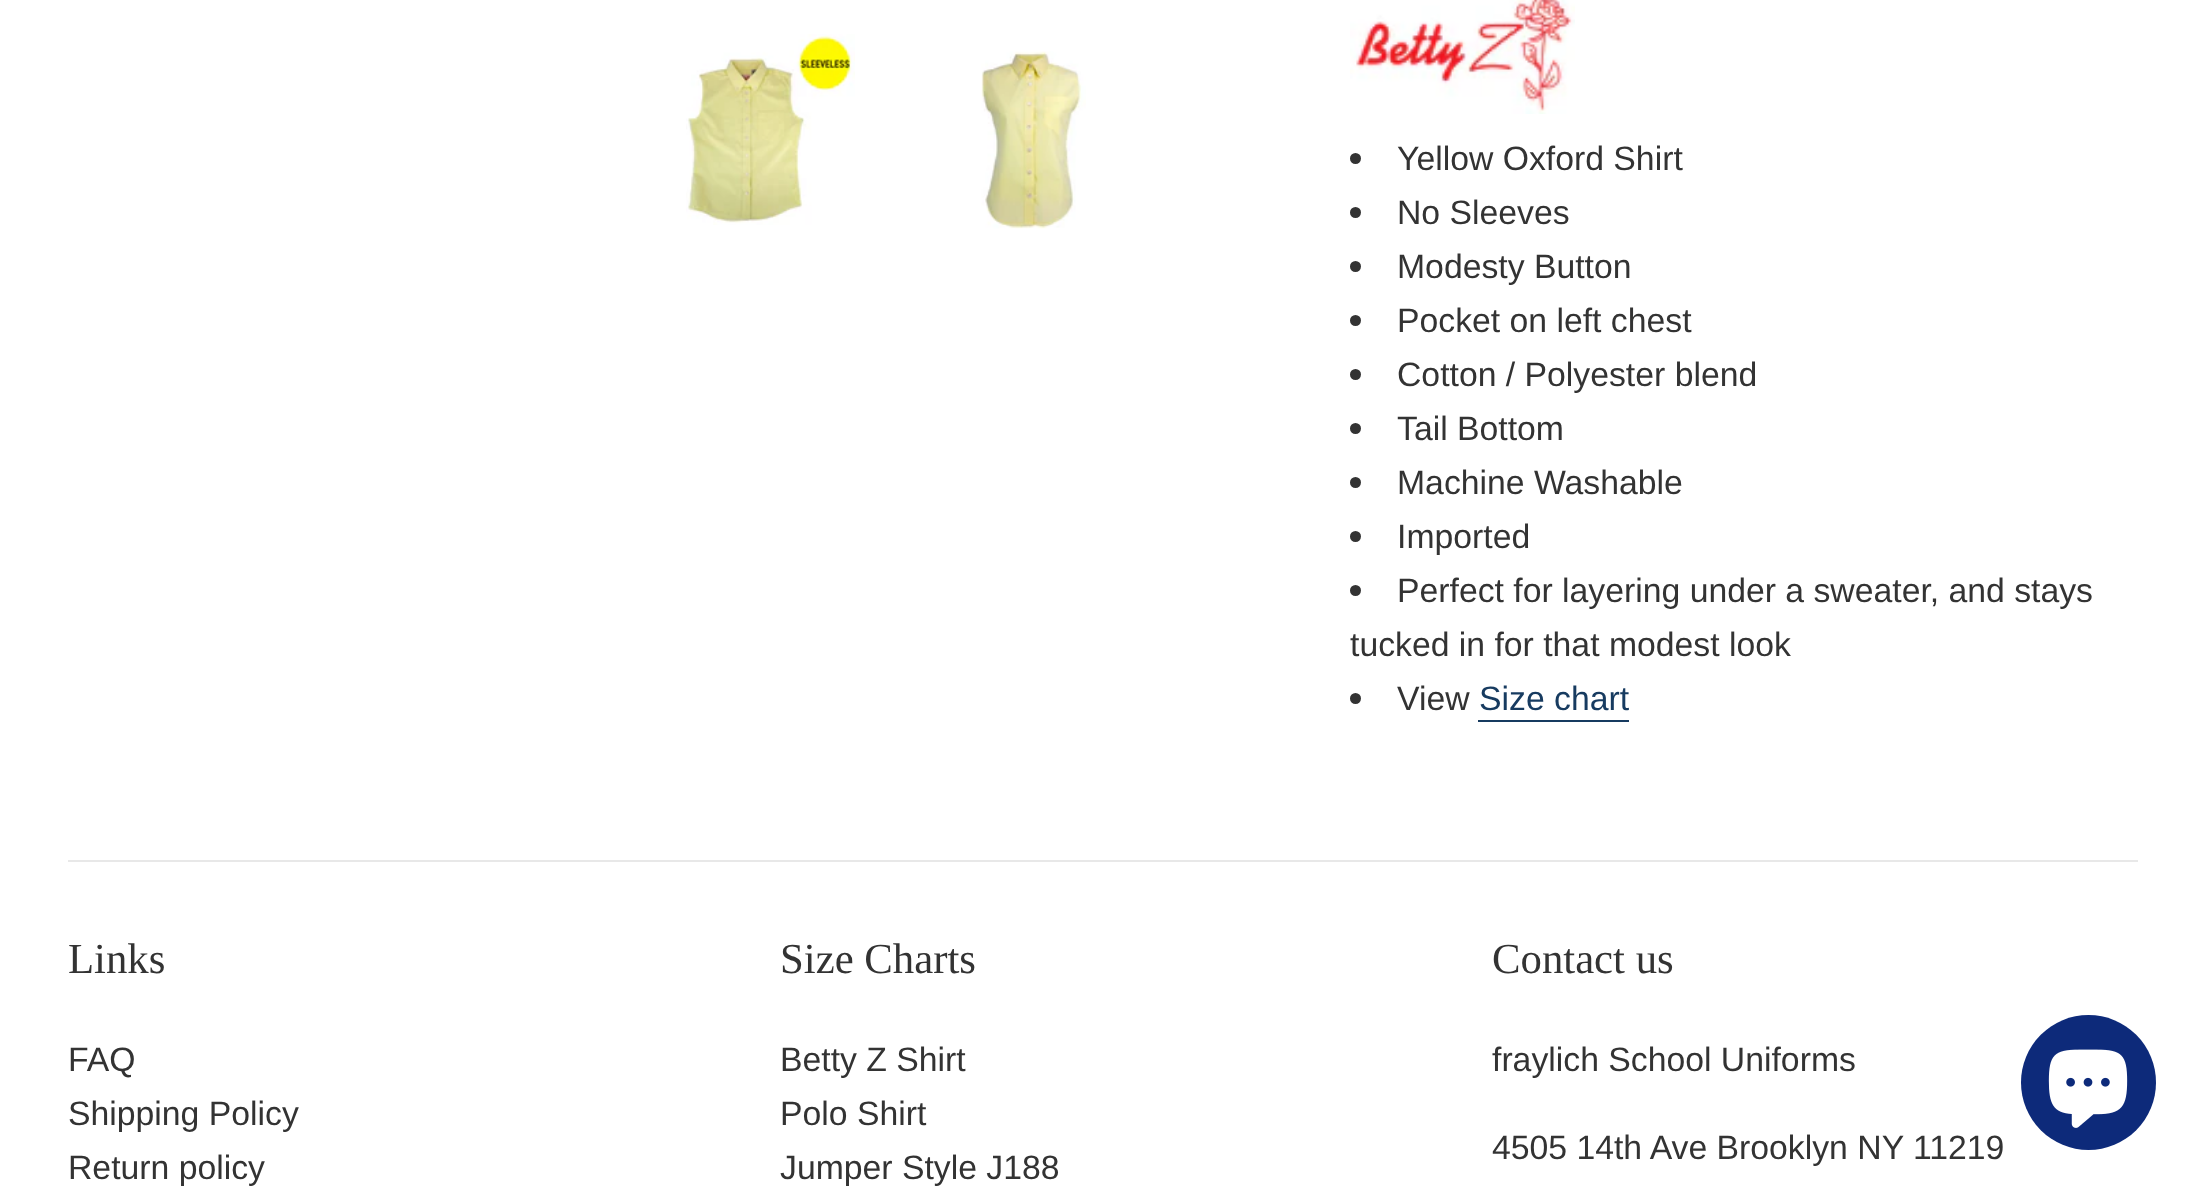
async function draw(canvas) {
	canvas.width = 2205;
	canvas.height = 1197;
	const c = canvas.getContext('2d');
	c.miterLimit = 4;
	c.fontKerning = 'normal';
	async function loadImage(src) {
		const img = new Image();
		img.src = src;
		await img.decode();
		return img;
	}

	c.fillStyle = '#fff';
	c.fillRect(0, 0, 2205, 1197);
	c.drawImage(await loadImage('img1.png'), 686, 34, 169, 191);
	c.drawImage(await loadImage('img2.png'), 981, 51, 105, 178);
	c.drawImage(await loadImage('img3.png'), 1350, 0, 225, 114);
	c.fillStyle = '#333';
	c.beginPath();
	c.arc(1355.5, 158.5, 5.5, 0, 2 * Math.PI);
	c.fill();
	c.font = '33.75px Liberation Sans';
	c.fillText('Yellow Oxford Shirt', 1397, 170);
	c.beginPath();
	c.arc(1355.5, 212.5, 5.5, 0, 2 * Math.PI);
	c.fill();
	c.fillText('No Sleeves', 1397, 224);
	c.beginPath();
	c.arc(1355.5, 266.5, 5.5, 0, 2 * Math.PI);
	c.fill();
	c.fillText('Modesty Button', 1397, 278);
	c.beginPath();
	c.arc(1355.5, 320.5, 5.5, 0, 2 * Math.PI);
	c.fill();
	c.fillText('Pocket on left chest', 1397, 332);
	c.beginPath();
	c.arc(1355.5, 374.5, 5.5, 0, 2 * Math.PI);
	c.fill();
	c.fillText('Cotton / Polyester blend', 1397, 386);
	c.beginPath();
	c.arc(1355.5, 428.5, 5.5, 0, 2 * Math.PI);
	c.fill();
	c.fillText('Tail Bottom', 1397, 440);
	c.beginPath();
	c.arc(1355.5, 482.5, 5.5, 0, 2 * Math.PI);
	c.fill();
	c.fillText('Machine Washable', 1397, 494);
	c.beginPath();
	c.arc(1355.5, 536.5, 5.5, 0, 2 * Math.PI);
	c.fill();
	c.fillText('Imported', 1397, 548);
	c.beginPath();
	c.arc(1355.5, 590.5, 5.5, 0, 2 * Math.PI);
	c.fill();
	c.fillText('Perfect for layering under a sweater, and stays', 1397, 602);
	c.fillText('tucked in for that modest look', 1350, 656);
	c.beginPath();
	c.arc(1355.5, 698.5, 5.5, 0, 2 * Math.PI);
	c.fill();
	c.fillText('View', 1397, 710);
	c.fillStyle = '#173b60';
	c.fillText('Size chart', 1479, 710);
	c.fillRect(1478, 720, 151, 2);
	c.fillStyle = '#e8e8e8';
	c.fillRect(68, 860, 2070, 2);
	c.font = '42.75px Liberation Serif';
	c.fillStyle = '#333';
	c.fillText('Links', 68, 973);
	c.font = '33.75px Liberation Sans';
	for (const [text, x, y] of [
		['FAQ', 68, 1071],
		['Shipping Policy', 68, 1125],
		['Return policy', 68, 1179],
	]) {
		c.fillText(text, x, y);
	}
	c.font = '42.75px Liberation Serif';
	c.fillText('Size Charts', 780, 973);
	c.font = '33.75px Liberation Sans';
	for (const [text, x, y] of [
		['Betty Z Shirt', 780, 1071],
		['Polo Shirt', 780, 1125],
		['Jumper Style J188', 780, 1179],
	]) {
		c.fillText(text, x, y);
	}
	c.font = '42.75px Liberation Serif';
	c.fillText('Contact us', 1492, 973);
	c.font = '33.75px Liberation Sans';
	c.fillText('fraylich School Uniforms', 1492, 1071);
	c.fillText('4505 14th Ave Brooklyn NY 11219', 1492, 1159);
	c.fillStyle = '#0d2a7a';
	c.beginPath();
	c.arc(2088.5, 1082.5, 67.5, 0, 2 * Math.PI);
	c.fill();
	c.drawImage(await loadImage('img4.png'), 2048, 1049, 80, 79);
}

draw(document.querySelector('canvas'));
